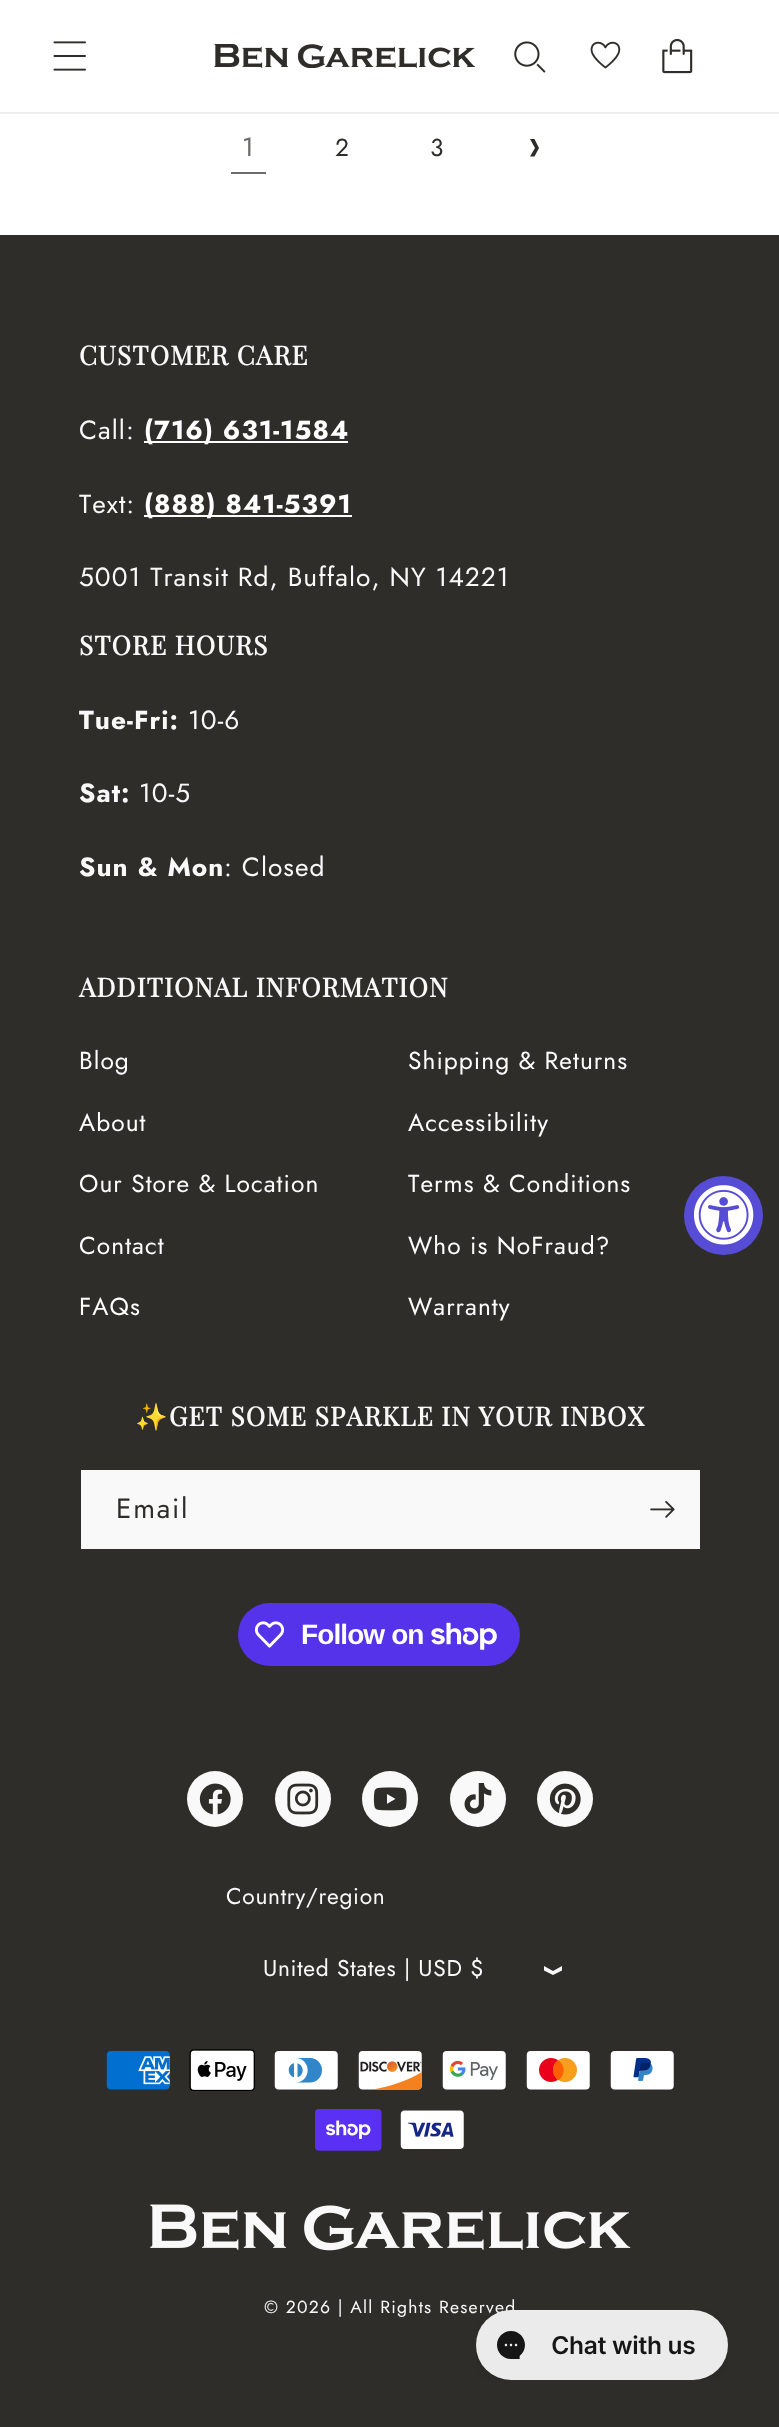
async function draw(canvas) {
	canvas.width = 779;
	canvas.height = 2427;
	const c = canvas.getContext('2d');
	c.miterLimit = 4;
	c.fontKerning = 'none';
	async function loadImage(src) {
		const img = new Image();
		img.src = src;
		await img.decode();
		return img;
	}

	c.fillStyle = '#fff';
	c.fillRect(0, 0, 779, 2427);
	c.fillStyle = '#eee';
	c.fillRect(0, 112, 779, 2);
	c.drawImage(await loadImage('img1.png'), 53, 41, 33, 30);
	c.drawImage(await loadImage('img2.png'), 214, 44, 261, 24);
	c.drawImage(await loadImage('img3.png'), 514, 41, 32, 32);
	c.drawImage(await loadImage('img4.png'), 590, 41, 31, 28);
	c.drawImage(await loadImage('img5.png'), 662, 38, 31, 36);
	c.letterSpacing = '1.05px';
	c.font = '26.25px Jost';
	c.fillStyle = '#6d6c6a';
	c.fillText('1', 242, 156);
	c.fillRect(231, 172, 35, 2);
	c.font = '24.5px Jost';
	c.fillStyle = '#2f2d2a';
	c.fillText('2', 335, 156);
	c.fillText('3', 430, 156);
	c.beginPath();
	c.moveTo(535, 148);
	c.lineTo(530, 156.5);
	c.lineTo(534.5, 156.5);
	c.lineTo(539, 148);
	c.lineTo(534.5, 139);
	c.lineTo(530, 139);
	c.closePath();
	c.fill();
	c.fillRect(0, 235, 779, 2192);
	c.font = 'bold 26.25px Playfair Display';
	c.fillStyle = '#f9f9f9';
	c.fillText('CUSTOMER CARE', 79, 365);
	c.font = '26.25px Jost';
	c.fillText('Call:', 79, 439);
	c.fillStyle = '#fff';
	c.fillRect(144, 441, 204, 2);
	c.font = 'bold 26.25px Jost';
	c.fillText('(716) 631-1584', 144, 439);
	c.font = '26.25px Jost';
	c.fillStyle = '#f9f9f9';
	c.fillText('Text:', 79, 513);
	c.fillStyle = '#fff';
	c.fillRect(144, 515, 208, 2);
	c.font = 'bold 26.25px Jost';
	c.fillText('(888) 841-5391', 144, 513);
	c.font = '26.25px Jost';
	c.fillStyle = '#f9f9f9';
	c.fillText('5001 Transit Rd, Buffalo, NY 14221', 79, 586);
	c.font = 'bold 26.25px Playfair Display';
	c.fillText('STORE HOURS', 79, 655);
	c.font = 'bold 26.25px Jost';
	c.fillText('Tue-Fri:', 79, 729);
	c.font = '26.25px Jost';
	c.fillText('10-6', 188, 729);
	c.font = 'bold 26.25px Jost';
	c.fillText('Sat:', 79, 802);
	c.font = '26.25px Jost';
	c.fillText('10-5', 139, 802);
	c.font = 'bold 26.25px Jost';
	c.fillText('Sun & Mon', 79, 876);
	c.font = '26.25px Jost';
	c.fillText(': Closed', 224, 876);
	c.font = 'bold 26.25px Playfair Display';
	c.fillText('ADDITIONAL INFORMATION', 79, 997);
	c.font = '24.5px Jost';
	c.fillStyle = '#fff';
	for (const [text, x, y] of [
		['Blog', 79, 1069],
		['Shipping & Returns', 408, 1069],
		['About', 79, 1131],
		['Accessibility', 408, 1131],
		['Our Store & Location', 79, 1192],
		['Terms & Conditions', 408, 1192],
		['Contact', 79, 1254],
		['Who is NoFraud?', 408, 1254],
		['FAQs', 79, 1315],
		['Warranty', 408, 1315],
	]) {
		c.fillText(text, x, y);
	}
	c.font = 'bold 26.25px Noto Color Emoji';
	c.fillStyle = '#f9f9f9';
	c.fillText('✨', 135, 1426);
	c.font = 'bold 26.25px Playfair Display';
	c.fillText('GET SOME SPARKLE IN YOUR INBOX', 169, 1426);
	c.fillRect(81, 1470, 619, 79);
	c.letterSpacing = '1.75px';
	c.font = '28px Jost';
	c.fillStyle = '#2f2d2a';
	c.fillText('Email', 116, 1518);
	c.drawImage(await loadImage('img6.png'), 650, 1501, 25, 17);
	c.fillStyle = '#5433eb';
	c.beginPath();
	c.roundRect(238, 1603, 282, 63, 31.5);
	c.fill();
	c.drawImage(await loadImage('img7.png'), 254, 1621, 31, 27);
	c.letterSpacing = '-0.9px';
	c.font = 'bold 28px Liberation Sans';
	c.fillStyle = '#fff';
	c.fillText('Follow on', 301, 1644);
	c.drawImage(await loadImage('img8.png'), 431, 1622, 66, 28);
	c.fillStyle = '#f9f9f9';
	c.beginPath();
	c.arc(215, 1799, 28, 0, 2 * Math.PI);
	c.fill();
	c.drawImage(await loadImage('img9.png'), 199, 1783, 32, 32);
	c.beginPath();
	c.arc(303, 1799, 28, 0, 2 * Math.PI);
	c.fill();
	c.drawImage(await loadImage('img10.png'), 287, 1783, 32, 32);
	c.beginPath();
	c.arc(390, 1799, 28, 0, 2 * Math.PI);
	c.fill();
	c.drawImage(await loadImage('img11.png'), 373, 1787, 34, 24);
	c.beginPath();
	c.arc(478, 1799, 28, 0, 2 * Math.PI);
	c.fill();
	c.drawImage(await loadImage('img12.png'), 464, 1783, 28, 31);
	c.beginPath();
	c.arc(565, 1799, 28, 0, 2 * Math.PI);
	c.fill();
	c.drawImage(await loadImage('img13.png'), 549, 1783, 32, 32);
	c.letterSpacing = '0.7px';
	c.font = '22.75px Jost';
	c.fillText('Country/region', 226, 1904);
	c.fillText('United States | USD $', 263, 1976);
	c.beginPath();
	c.moveTo(553, 1971);
	c.lineTo(562, 1966);
	c.lineTo(562, 1970.5);
	c.lineTo(553, 1975);
	c.lineTo(544, 1970.5);
	c.lineTo(544, 1966);
	c.closePath();
	c.fill();
	c.drawImage(await loadImage('img14.png'), 106, 2051, 64, 39);
	c.drawImage(await loadImage('img15.png'), 189, 2049, 66, 42);
	c.drawImage(await loadImage('img16.png'), 274, 2051, 64, 39);
	c.drawImage(await loadImage('img17.png'), 358, 2051, 64, 39);
	c.drawImage(await loadImage('img18.png'), 442, 2051, 64, 39);
	c.drawImage(await loadImage('img19.png'), 526, 2051, 64, 39);
	c.drawImage(await loadImage('img20.png'), 610, 2051, 64, 39);
	c.drawImage(await loadImage('img21.png'), 315, 2109, 67, 42);
	c.drawImage(await loadImage('img22.png'), 400, 2110, 64, 39);
	c.drawImage(await loadImage('img23.png'), 150, 2204, 481, 47);
	c.letterSpacing = '1.25px';
	c.font = '17.5px Jost';
	c.fillText('© 2026 | All Rights Reserved', 264, 2313);
	c.fillStyle = '#574cd5';
	c.beginPath();
	c.arc(723.5, 1215.5, 39.5, 0, 2 * Math.PI);
	c.fill();
	c.drawImage(await loadImage('img24.png'), 693, 1185, 61, 60);
	c.drawImage(await loadImage('img25.png'), 476, 2310, 252, 70);
}

draw(document.querySelector('canvas'));
